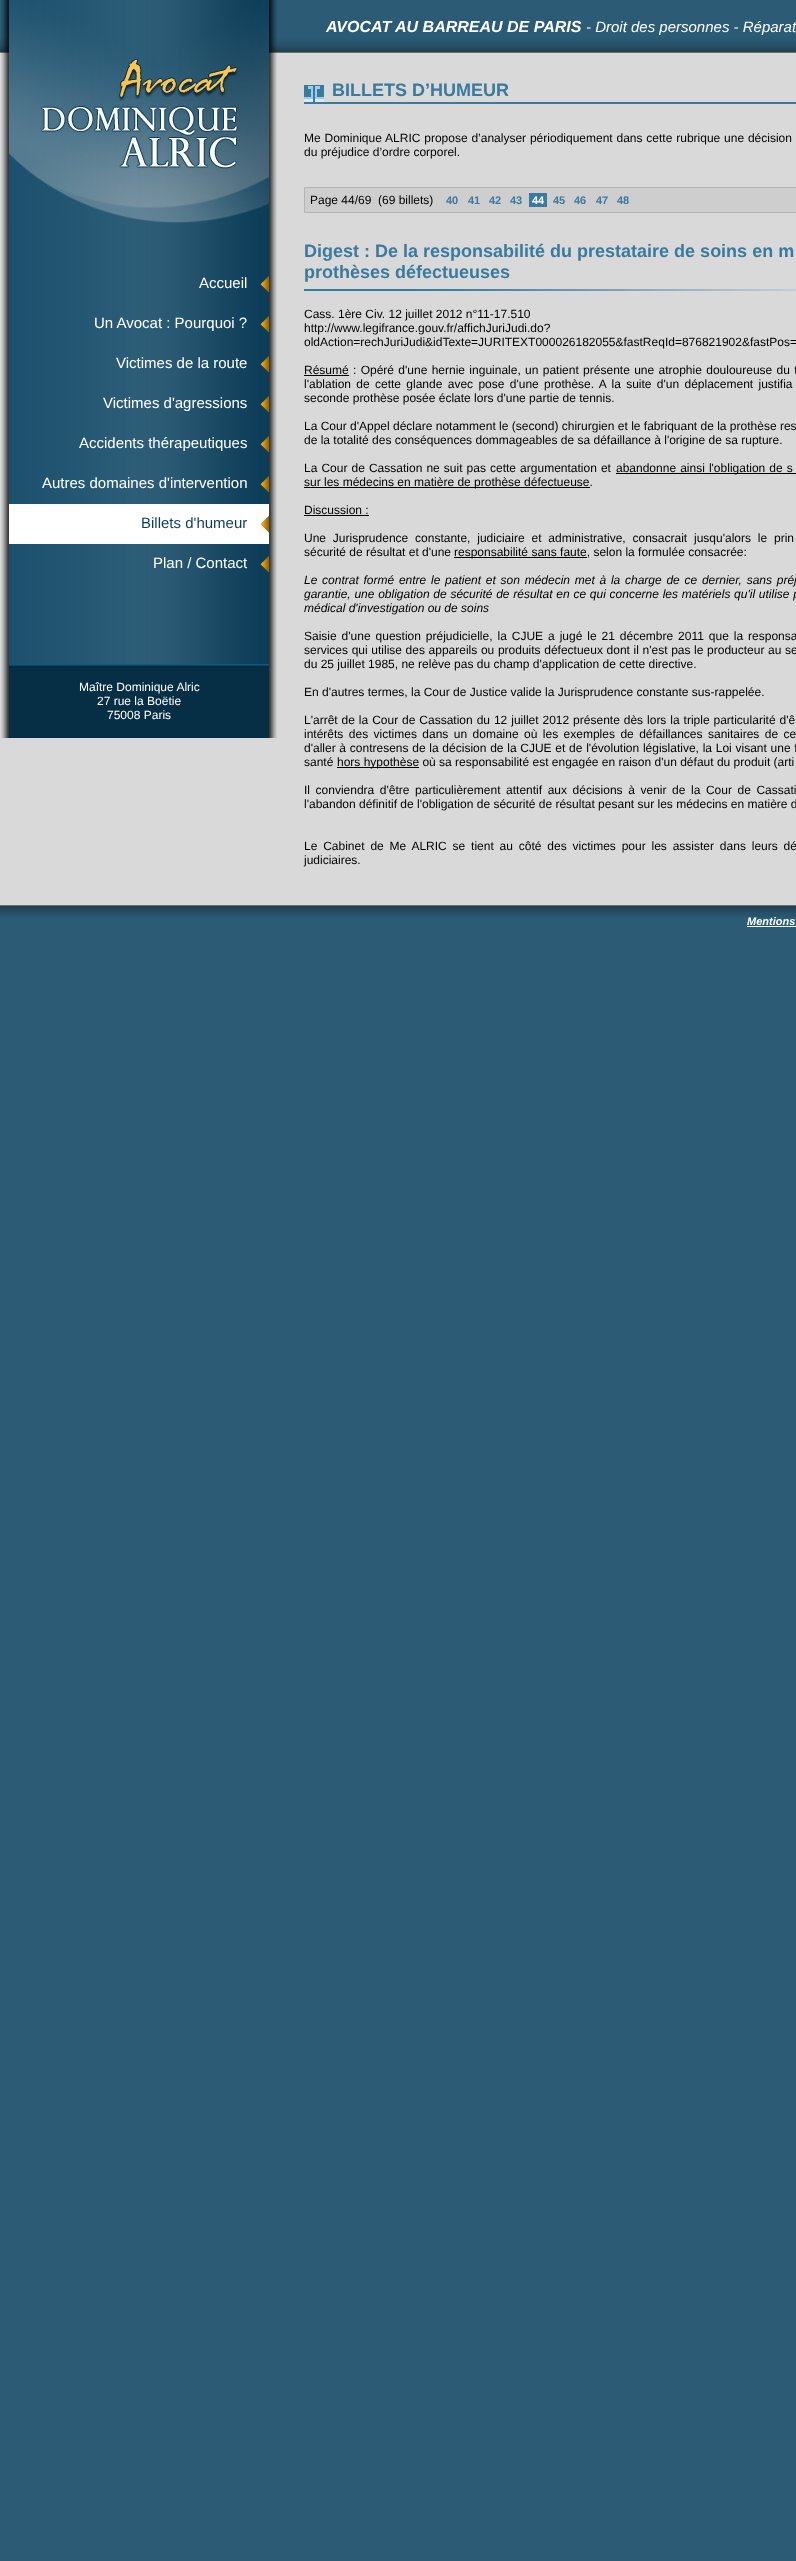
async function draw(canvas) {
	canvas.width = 796;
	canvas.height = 2561;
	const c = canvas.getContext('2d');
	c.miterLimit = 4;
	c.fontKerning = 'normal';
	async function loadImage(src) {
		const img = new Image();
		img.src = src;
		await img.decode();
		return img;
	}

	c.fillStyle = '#2b5b75';
	c.fillRect(0, 0, 796, 2561);
	c.fillStyle = '#d9d9d9';
	c.fillRect(0, 53, 796, 852);
	c.drawImage(await loadImage('img1.png'), 0, 0, 796, 53);
	c.drawImage(await loadImage('img2.png'), 1, 0, 276, 54);
	c.font = 'italic bold 16px Liberation Sans';
	c.fillStyle = '#fff';
	c.fillText('AVOCAT AU BARREAU DE PARIS', 326, 32);
	c.font = 'italic 15px Liberation Sans';
	c.fillText('- Droit des personnes - Réparat', 586, 32);
	c.drawImage(await loadImage('img3.png'), 1, 54, 8, 684);
	c.drawImage(await loadImage('img4.png'), 9, 223, 260, 441);
	c.drawImage(await loadImage('img5.png'), 9, 54, 260, 169);
	c.drawImage(await loadImage('img6.png'), 260, 276, 9, 17);
	c.font = '15px Liberation Sans';
	c.fillText('Accueil', 199, 288);
	c.drawImage(await loadImage('img6.png'), 260, 316, 9, 17);
	c.fillText('Un Avocat : Pourquoi ?', 94, 328);
	c.drawImage(await loadImage('img6.png'), 260, 356, 9, 17);
	c.fillText('Victimes de la route', 116, 368);
	c.drawImage(await loadImage('img6.png'), 260, 396, 9, 17);
	c.fillText('Victimes d\'agressions', 103, 408);
	c.drawImage(await loadImage('img6.png'), 260, 436, 9, 17);
	c.fillText('Accidents thérapeutiques', 79, 448);
	c.drawImage(await loadImage('img6.png'), 260, 476, 9, 17);
	c.fillText('Autres domaines d\'intervention', 42, 488);
	c.fillRect(9, 504, 260, 40);
	c.drawImage(await loadImage('img7.png'), 260, 516, 9, 17);
	c.fillStyle = '#0d3e59';
	c.fillText('Billets d\'humeur', 141, 528);
	c.drawImage(await loadImage('img6.png'), 260, 556, 9, 17);
	c.fillStyle = '#fff';
	c.fillText('Plan / Contact', 153, 568);
	c.fillStyle = '#062f45';
	c.fillRect(9, 668, 260, 70);
	c.drawImage(await loadImage('img8.png'), 9, 664, 260, 4);
	c.font = '12px Liberation Sans';
	c.fillStyle = '#fff';
	for (const [text, x, y] of [
		['Maître Dominique Alric', 79, 691],
		['27 rue la Boëtie', 97, 705],
		['75008 Paris', 107, 719],
	]) {
		c.fillText(text, x, y);
	}
	c.drawImage(await loadImage('img9.png'), 269, 54, 8, 684);
	c.drawImage(await loadImage('img10.png'), 304, 85, 492, 19);
	c.font = 'bold 18px Liberation Sans';
	c.fillStyle = '#397b9e';
	c.fillText('BILLETS D’HUMEUR', 332, 96);
	c.wordSpacing = '0.5px';
	c.font = '12px Liberation Sans';
	c.fillStyle = '#000';
	c.fillText('Me Dominique ALRIC propose d’analyser périodiquement dans cette rubrique une décision', 304, 142);
	c.wordSpacing = '0px';
	c.fillText('du préjudice d’ordre corporel.', 304, 156);
	c.fillStyle = '#cecece';
	c.beginPath();
	c.rect(304.5, 187.5, 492, 25);
	c.fill();
	c.strokeStyle = '#b4b4b4';
	c.stroke();
	c.fillStyle = '#000';
	c.fillText('Page 44/69', 310, 204);
	c.fillText('(69 billets)', 378, 204);
	c.font = 'bold 11px Liberation Sans';
	c.fillStyle = '#397b9e';
	for (const [text, x, y] of [
		['40', 446, 204],
		['41', 468, 204],
		['42', 489, 204],
		['43', 510, 204],
	]) {
		c.fillText(text, x, y);
	}
	c.fillRect(529, 193, 18, 14);
	c.fillStyle = '#fff';
	c.fillText('44', 532, 204);
	c.fillStyle = '#397b9e';
	for (const [text, x, y] of [
		['45', 553, 204],
		['46', 574, 204],
		['47', 596, 204],
		['48', 617, 204],
	]) {
		c.fillText(text, x, y);
	}
	c.font = 'bold 18px Liberation Sans';
	c.fillText('Digest : De la responsabilité du prestataire de soins en m', 304, 257);
	c.fillText('prothèses défectueuses', 304, 278);
	c.drawImage(await loadImage('img11.png'), 304, 289, 492, 2);
	c.font = '12px Liberation Sans';
	c.fillStyle = '#000';
	for (const [text, x, y] of [
		['Cass. 1ère Civ. 12 juillet 2012 n°11-17.510', 304, 318],
		['http://www.legifrance.gouv.fr/affichJuriJudi.do?', 304, 332],
		['oldAction=rechJuriJudi&idTexte=JURITEXT000026182055&fastReqId=876821902&fastPos=', 304, 346],
		['Résumé', 304, 374],
	]) {
		c.fillText(text, x, y);
	}
	c.fillRect(304, 375, 45, 1);
	c.wordSpacing = '1px';
	c.fillText(': Opéré d\'une hernie inguinale, un patient présente une atrophie douloureuse du t', 353, 374);
	c.wordSpacing = '2px';
	c.fillText('l\'ablation de cette glande avec pose d\'une prothèse. A la suite d\'un déplacement justifia', 304, 388);
	c.wordSpacing = '0px';
	for (const [text, x, y] of [
		['seconde prothèse posée éclate lors d\'une partie de tennis.', 304, 402],
		['La Cour d\'Appel déclare notamment le (second) chirurgien et le fabriquant de la prothèse res', 304, 430],
		['de la totalité des conséquences dommageables de sa défaillance à l\'origine de sa rupture.', 304, 444],
	]) {
		c.fillText(text, x, y);
	}
	c.wordSpacing = '0.75px';
	c.fillText('La Cour de Cassation ne suit pas cette argumentation et', 304, 472);
	c.fillRect(616, 473, 180, 1);
	c.fillText('abandonne ainsi l\'obligation de s', 616, 472);
	c.fillRect(304, 487, 286, 1);
	c.wordSpacing = '0px';
	c.fillText('sur les médecins en matière de prothèse défectueuse.', 304, 486);
	c.fillText('Discussion :', 304, 514);
	c.fillRect(304, 515, 65, 1);
	c.wordSpacing = '3.5px';
	c.fillText('Une Jurisprudence constante, judiciaire et administrative, consacrait jusqu\'alors le prin', 304, 542);
	c.wordSpacing = '0px';
	c.fillText('sécurité de résultat et d\'une', 304, 556);
	c.fillRect(454, 557, 133, 1);
	c.fillText('responsabilité sans faute, selon la formulée consacrée:', 454, 556);
	c.wordSpacing = '1.4px';
	c.font = 'italic 12px Liberation Sans';
	c.fillText('Le contrat formé entre le patient et son médecin met à la charge de ce dernier, sans préj', 304, 584);
	c.wordSpacing = '0.4px';
	c.fillText('garantie, une obligation de sécurité de résultat en ce qui concerne les matériels qu\'il utilise p', 304, 598);
	c.wordSpacing = '0px';
	c.fillText('médical d\'investigation ou de soins', 304, 612);
	c.wordSpacing = '1.6px';
	c.font = '12px Liberation Sans';
	c.fillText('Saisie d\'une question préjudicielle, la CJUE a jugé le 21 décembre 2011 que la responsa', 304, 640);
	c.wordSpacing = '0.3px';
	c.fillText('services qui utilise des appareils ou produits défectueux dont il n\'est pas le producteur au se', 304, 654);
	c.wordSpacing = '0px';
	c.fillText('du 25 juillet 1985, ne relève pas du champ d\'application de cette directive.', 304, 668);
	c.fillText('En d\'autres termes, la Cour de Justice valide la Jurisprudence constante sus-rappelée.', 304, 696);
	c.wordSpacing = '0.6px';
	c.fillText('L\'arrêt de la Cour de Cassation du 12 juillet 2012 présente dès lors la triple particularité d\'ê', 304, 724);
	c.wordSpacing = '2.1px';
	c.fillText('intérêts des victimes dans un domaine où les exemples de défaillances sanitaires de ce', 304, 738);
	c.wordSpacing = '0.4px';
	c.fillText('d\'aller à contresens de la décision de la CJUE et de l\'évolution législative, la Loi visant une f', 304, 752);
	c.wordSpacing = '0px';
	c.fillText('santé', 304, 766);
	c.fillRect(337, 767, 82, 1);
	c.fillText('hors hypothèse où sa responsabilité est engagée en raison d\'un défaut du produit (arti', 337, 766);
	c.wordSpacing = '2.25px';
	c.fillText('Il conviendra d\'être particulièrement attentif aux décisions à venir de la Cour de Cassati', 304, 794);
	c.wordSpacing = '0px';
	c.fillText('l\'abandon définitif de l\'obligation de sécurité de résultat pesant sur les médecins en matière d', 304, 808);
	c.wordSpacing = '2.5px';
	c.fillText('Le Cabinet de Me ALRIC se tient au côté des victimes pour les assister dans leurs dé', 304, 850);
	c.wordSpacing = '0px';
	c.fillText('judiciaires.', 304, 864);
	c.drawImage(await loadImage('img12.png'), 0, 905, 796, 12);
	c.font = 'italic bold 11px Liberation Sans';
	c.fillStyle = '#fff';
	c.fillText('Mentions', 747, 925);
	c.fillRect(747, 926, 49, 1);
}

draw(document.querySelector('canvas'));
